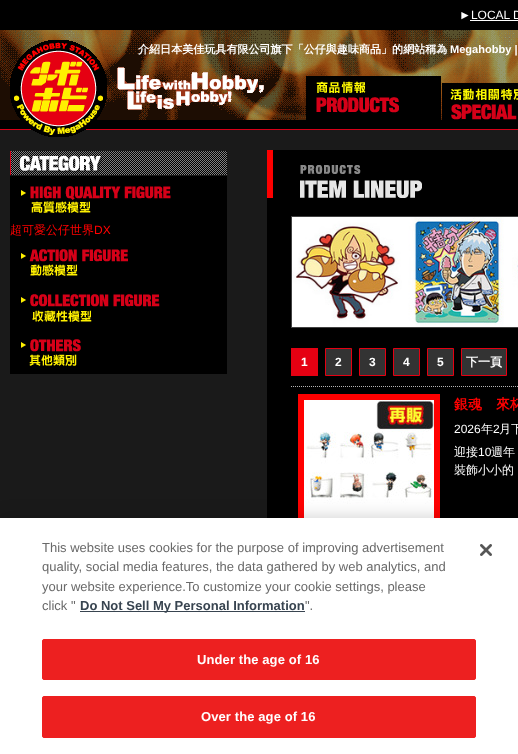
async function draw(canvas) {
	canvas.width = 518;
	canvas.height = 754;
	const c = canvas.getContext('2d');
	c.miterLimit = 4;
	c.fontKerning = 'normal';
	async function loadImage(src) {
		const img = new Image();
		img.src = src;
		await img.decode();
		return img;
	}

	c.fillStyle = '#000';
	c.fillRect(0, 0, 518, 754);
	c.font = '12px Liberation Sans';
	c.fillStyle = '#fff';
	c.fillText('►LOCAL D', 459, 19);
	c.fillRect(470, 20, 48, 1);
	c.fillStyle = '#d60018';
	c.fillRect(0, 129, 518, 1);
	c.drawImage(await loadImage('img1.png'), 0, 30, 518, 90);
	c.fillStyle = '#1a1a1a';
	c.fillRect(0, 130, 518, 388);
	c.drawImage(await loadImage('img2.png'), 10, 40, 97, 97);
	c.font = 'bold 11.05px WenQuanYi Zen Hei';
	c.fillStyle = '#fff';
	c.fillText('介紹日本美佳玩具有限公司旗下「公仔與趣味商品」的網站稱為', 138, 53);
	c.font = 'bold 11.05px Liberation Sans';
	c.fillText('Megahobby |', 450, 53);
	c.drawImage(await loadImage('img3.png'), 117, 67, 147, 43);
	c.drawImage(await loadImage('img4.png'), 306, 76, 135, 44);
	c.drawImage(await loadImage('img5.png'), 442, 83, 76, 37);
	c.fillStyle = '#000';
	c.fillRect(10, 176, 217, 198);
	c.drawImage(await loadImage('img6.png'), 10, 150, 217, 26);
	c.drawImage(await loadImage('img7.png'), 21, 186, 150, 27);
	c.font = '500 12px WenQuanYi Zen Hei';
	c.fillStyle = '#f00';
	c.fillText('超可愛公仔世界', 10, 234);
	c.font = '12px Liberation Sans';
	c.fillText('DX', 94, 234);
	c.drawImage(await loadImage('img8.png'), 21, 249, 107, 27);
	c.drawImage(await loadImage('img9.png'), 21, 294, 139, 28);
	c.drawImage(await loadImage('img10.png'), 21, 339, 60, 27);
	c.fillStyle = '#000';
	c.fillRect(267, 150, 251, 368);
	c.fillStyle = '#fe0000';
	c.fillRect(267, 150, 6, 48);
	c.drawImage(await loadImage('img11.png'), 300, 165, 122, 33);
	c.strokeStyle = '#414141';
	c.strokeRect(291.5, 216.5, 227, 111);
	c.drawImage(await loadImage('img12.png'), 292, 217, 110, 110);
	c.drawImage(await loadImage('img13.png'), 402, 217, 110, 110);
	c.drawImage(await loadImage('img14.png'), 512, 217, 6, 110);
	c.fillStyle = '#e50012';
	c.fillRect(291, 348, 27, 28);
	c.font = 'bold 12px Liberation Sans';
	c.fillStyle = '#fff';
	c.fillText('1', 301, 366);
	c.fillStyle = '#333';
	c.beginPath();
	c.rect(325.5, 348.5, 26, 27);
	c.fill();
	c.strokeStyle = '#e50012';
	c.stroke();
	c.fillStyle = '#fff';
	c.fillText('2', 335, 366);
	c.fillStyle = '#333';
	c.beginPath();
	c.rect(359.5, 348.5, 26, 27);
	c.fill();
	c.stroke();
	c.fillStyle = '#fff';
	c.fillText('3', 369, 366);
	c.fillStyle = '#333';
	c.beginPath();
	c.rect(393.5, 348.5, 26, 27);
	c.fill();
	c.stroke();
	c.fillStyle = '#fff';
	c.fillText('4', 403, 366);
	c.fillStyle = '#333';
	c.beginPath();
	c.rect(427.5, 348.5, 26, 27);
	c.fill();
	c.stroke();
	c.fillStyle = '#fff';
	c.fillText('5', 437, 366);
	c.fillStyle = '#333';
	c.beginPath();
	c.rect(461.5, 348.5, 45, 27);
	c.fill();
	c.stroke();
	c.font = 'bold 12px WenQuanYi Zen Hei';
	c.fillStyle = '#fff';
	c.fillText('下一頁', 466, 366);
	c.beginPath();
	c.moveTo(291, 386.5);
	c.lineTo(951, 386.5);
	c.strokeStyle = '#b5b5b5';
	c.setLineDash([1, 1]);
	c.stroke();
	c.strokeStyle = '#f00';
	c.lineWidth = 6;
	c.setLineDash([]);
	c.strokeRect(301, 397, 136, 136);
	c.drawImage(await loadImage('img15.png'), 304, 400, 130, 118);
	c.font = 'bold 14px WenQuanYi Zen Hei';
	c.fillStyle = '#f00';
	c.fillText('銀魂　來杯', 454, 409);
	c.font = '12px Liberation Sans';
	c.fillStyle = '#fff';
	c.fillText('2026', 454, 433);
	c.font = '500 12px WenQuanYi Zen Hei';
	c.fillText('年', 481, 433);
	c.font = '12px Liberation Sans';
	c.fillText('2', 493, 433);
	c.font = '500 12px WenQuanYi Zen Hei';
	c.fillText('月下', 499, 433);
	c.fillText('迎接', 454, 456);
	c.font = '12px Liberation Sans';
	c.fillText('10', 478, 456);
	c.font = '500 12px WenQuanYi Zen Hei';
	c.fillText('週年', 491, 456);
	c.fillText('裝飾小小的', 454, 474);
	c.fillStyle = '#00000033';
	c.filter = 'blur(9px)';
	c.beginPath();
	c.rect(0, 518, 518, 236);
	c.fill();
	c.filter = 'none';
	c.fillStyle = '#fff';
	c.fillRect(0, 518, 518, 236);
	c.font = '13px Liberation Sans';
	c.fillStyle = '#696969';
	for (const [text, x, y] of [
		['This website uses cookies for the purpose of improving advertisement', 42, 552],
		['quality, social media features, the data gathered by web analytics, and', 42, 571],
		['your website experience.To customize your cookie settings, please', 42, 591],
		['click "', 42, 610],
	]) {
		c.fillText(text, x, y);
	}
	c.fillStyle = '#384450';
	c.fillRect(80, 611, 225, 1);
	c.font = 'bold 13px Liberation Sans';
	c.fillText('Do Not Sell My Personal Information', 80, 610);
	c.font = '13px Liberation Sans';
	c.fillStyle = '#696969';
	c.fillText('".', 305, 610);
	c.fillStyle = '#ed2020';
	c.beginPath();
	c.roundRect(42.5, 639.5, 433, 40, 1.5);
	c.fill();
	c.strokeStyle = '#ed2020';
	c.lineWidth = 1;
	c.stroke();
	c.letterSpacing = '0.1px';
	c.font = 'bold 13px Liberation Sans';
	c.fillStyle = '#fff';
	c.fillText('Under the age of 16', 197, 664);
	c.fillStyle = '#ed2020';
	c.beginPath();
	c.roundRect(42.5, 696.5, 433, 41, 1.5);
	c.fill();
	c.stroke();
	c.fillStyle = '#fff';
	c.fillText('Over the age of 16', 201, 721);
	c.drawImage(await loadImage('img16.png'), 480, 544, 12, 12);
}

draw(document.querySelector('canvas'));
